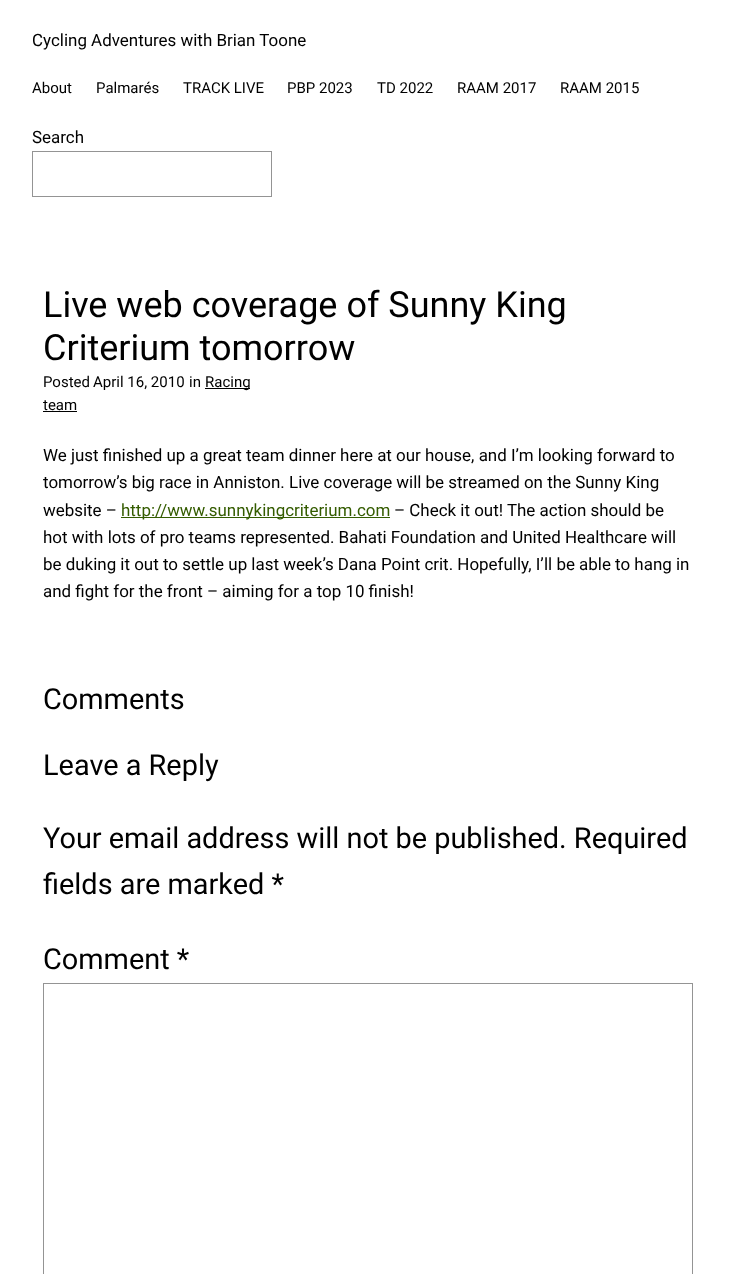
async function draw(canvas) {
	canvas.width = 735;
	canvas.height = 1274;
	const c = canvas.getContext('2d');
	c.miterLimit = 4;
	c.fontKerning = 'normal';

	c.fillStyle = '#fff';
	c.fillRect(0, 0, 735, 1274);
	c.font = '16.95px Roboto';
	c.fillStyle = '#000';
	c.fillText('Cycling Adventures with Brian Toone', 32, 46);
	c.font = '15px Roboto';
	for (const [text, x, y] of [
		['About', 32, 93],
		['Palmarés', 96, 93],
		['TRACK LIVE', 183, 93],
		['PBP 2023', 287, 93],
		['TD 2022', 377, 93],
		['RAAM 2017', 457, 93],
		['RAAM 2015', 560, 93],
	]) {
		c.fillText(text, x, y);
	}
	c.font = '16.95px Roboto';
	c.fillText('Search', 32, 143);
	c.strokeStyle = '#949494';
	c.strokeRect(32.5, 151.5, 239, 45);
	c.font = '36px Roboto';
	c.fillText('Live web coverage of Sunny King', 43, 317);
	c.fillText('Criterium tomorrow', 43, 360);
	c.font = '15px Roboto';
	for (const [text, x, y] of [
		['Posted', 43, 387],
		['April 16, 2010', 93, 387],
		['in', 189, 387],
	]) {
		c.fillText(text, x, y);
	}
	c.fillRect(205, 388, 45, 1);
	c.fillText('Racing', 205, 387);
	c.fillText('team', 43, 410);
	c.fillRect(43, 411, 34, 1);
	c.font = '16.95px Roboto';
	for (const [text, x, y] of [
		['We just finished up a great team dinner here at our house, and I’m looking forward to', 43, 461],
		['tomorrow’s big race in Anniston. Live coverage will be streamed on the Sunny King', 43, 488],
		['website –', 43, 516],
	]) {
		c.fillText(text, x, y);
	}
	c.fillStyle = '#345c00';
	c.fillRect(121, 517, 269, 1);
	c.fillText('http://www.sunnykingcriterium.com', 121, 516);
	c.fillStyle = '#000';
	for (const [text, x, y] of [
		['– Check it out! The action should be', 394, 516],
		['hot with lots of pro teams represented. Bahati Foundation and United Healthcare will', 43, 543],
		['be duking it out to settle up last week’s Dana Point crit. Hopefully, I’ll be able to hang in', 43, 570],
		['and fight for the front – aiming for a top 10 finish!', 43, 597],
	]) {
		c.fillText(text, x, y);
	}
	c.font = '28.9px Roboto';
	for (const [text, x, y] of [
		['Comments', 43, 709],
		['Leave a Reply', 43, 775],
		['Your email address will not be published. Required', 43, 848],
		['fields are marked *', 43, 894],
		['Comment *', 43, 969],
	]) {
		c.fillText(text, x, y);
	}
	c.strokeRect(43.5, 983.5, 649, 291);
}

draw(document.querySelector('canvas'));
